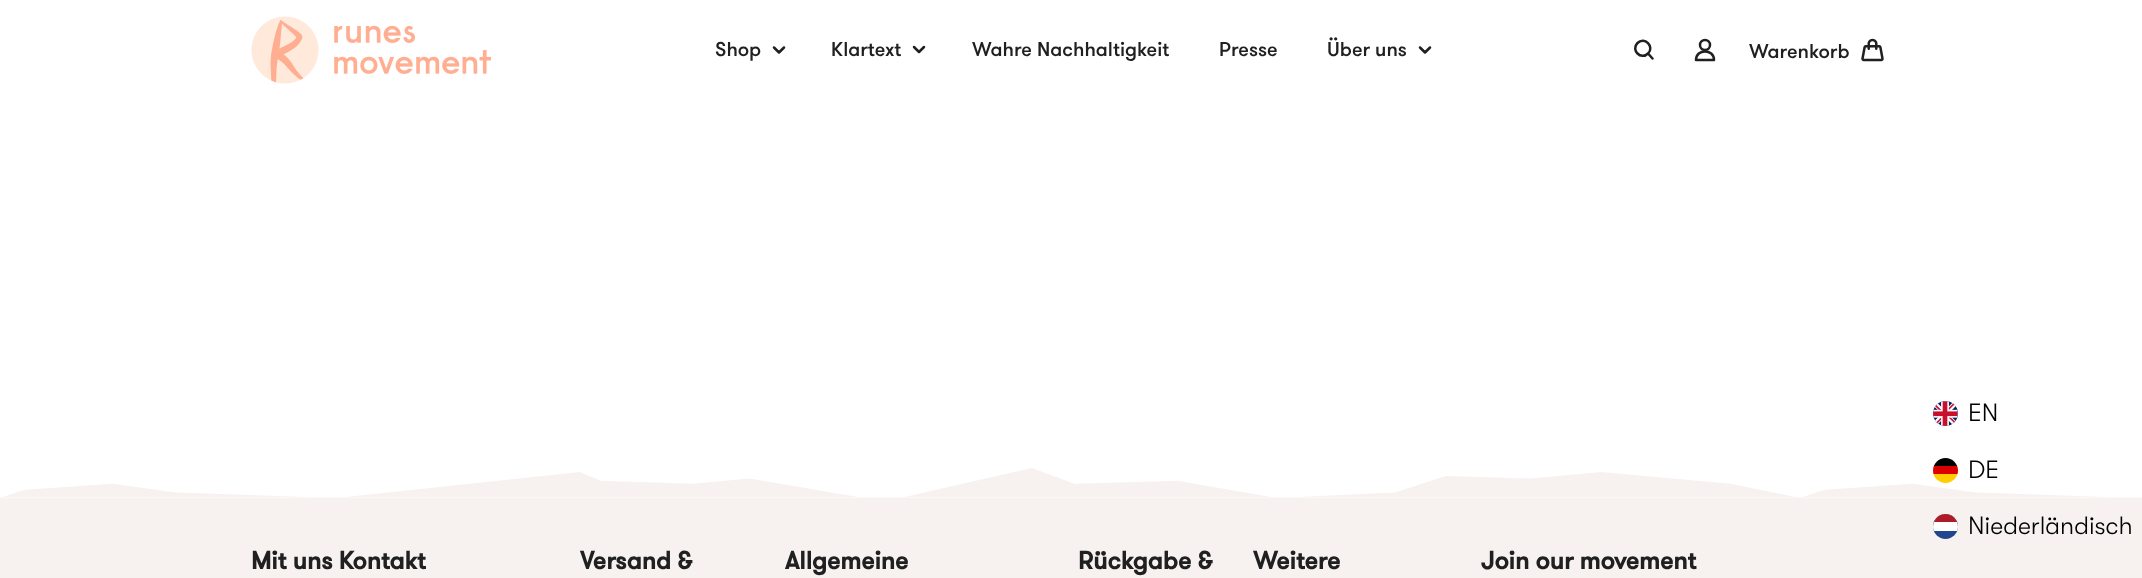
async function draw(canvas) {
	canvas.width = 2142;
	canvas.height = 578;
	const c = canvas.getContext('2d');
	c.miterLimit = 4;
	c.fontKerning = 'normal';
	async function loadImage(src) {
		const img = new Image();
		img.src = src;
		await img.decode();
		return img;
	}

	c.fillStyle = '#fff';
	c.fillRect(0, 0, 2142, 578);
	c.drawImage(await loadImage('img1.png'), 251, 16, 240, 68);
	c.font = '500 20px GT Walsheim';
	c.fillStyle = '#202020';
	c.fillText('Shop', 715, 56);
	c.beginPath();
	c.moveTo(774, 47.5);
	c.lineTo(779, 52.5);
	c.lineTo(784, 47.5);
	c.moveTo(774, 47.5);
	c.lineTo(779, 52.5);
	c.lineTo(784, 47.5);
	c.strokeStyle = '#202020';
	c.lineWidth = 2.5;
	c.lineCap = 'round';
	c.lineJoin = 'round';
	c.stroke();
	c.fillText('Klartext', 831, 56);
	c.beginPath();
	c.moveTo(914, 47);
	c.lineTo(919, 52);
	c.lineTo(924, 47);
	c.moveTo(914, 47);
	c.lineTo(919, 52);
	c.lineTo(924, 47);
	c.stroke();
	for (const [text, x, y] of [
		['Wahre Nachhaltigkeit', 972, 56],
		['Presse', 1219, 56],
		['Über uns', 1327, 56],
	]) {
		c.fillText(text, x, y);
	}
	c.beginPath();
	c.moveTo(1420, 47.5);
	c.lineTo(1425, 52.5);
	c.lineTo(1430, 47.5);
	c.moveTo(1420, 47.5);
	c.lineTo(1425, 52.5);
	c.lineTo(1430, 47.5);
	c.stroke();
	c.beginPath();
	c.moveTo(1637.5, 43);
	c.bezierCurveTo(1644.5, 36, 1655, 47, 1648, 53.5);
	c.bezierCurveTo(1641, 60.5, 1630.5, 50, 1637.5, 43);
	c.closePath();
	c.lineCap = 'butt';
	c.lineJoin = 'miter';
	c.stroke();
	c.beginPath();
	c.moveTo(1648.5, 54);
	c.lineTo(1652.5, 58.5);
	c.lineCap = 'round';
	c.lineJoin = 'round';
	c.stroke();
	c.beginPath();
	c.moveTo(1714, 60);
	c.bezierCurveTo(1714, 48.5, 1696, 48.5, 1696, 60);
	c.closePath();
	c.lineCap = 'butt';
	c.stroke();
	c.beginPath();
	c.arc(1705, 45, 5, 0, 2 * Math.PI);
	c.stroke();
	c.fillText('Warenkorb', 1749, 58);
	c.drawImage(await loadImage('img2.png'), 1861, 38, 23, 24);
	c.fillStyle = '#f7f2f0';
	c.fillRect(0, 468, 2142, 110);
	c.drawImage(await loadImage('img3.png'), 0, 428, 2142, 70);
	c.font = 'bold 25px GT Walsheim';
	c.fillStyle = '#202020';
	for (const [text, x, y] of [
		['Mit uns Kontakt', 251, 569],
		['Versand &', 580, 569],
		['Allgemeine', 785, 569],
		['Rückgabe &', 1078, 569],
		['Weitere', 1253, 569],
		['Join our movement', 1481, 569],
	]) {
		c.fillText(text, x, y);
	}
	c.drawImage(await loadImage('img4.png'), 1933, 401, 25, 25);
	c.font = '300 25px GT Walsheim';
	c.fillStyle = '#000';
	c.fillText('EN', 1968, 421);
	c.save();
	c.beginPath();
	c.roundRect(1933, 458, 25, 25, 12.5);
	c.clip();
	for (const [x, y, w, h, color] of [
		[1933, 474, 25, 9, '#ffce00'],
		[1933, 458, 25, 8, '#000'],
		[1933, 466, 25, 8, '#d00'],
	]) {
		c.fillStyle = color;
		c.fillRect(x, y, w, h);
	}
	c.restore();
	c.fillText('DE', 1968, 478);
	c.fillStyle = '#21468b';
	c.beginPath();
	c.arc(1945.5, 526.5, 12.5, 0, 2 * Math.PI);
	c.fill();
	c.save();
	c.beginPath();
	c.roundRect(1933, 514, 25, 25, 12.5);
	c.clip();
	c.fillStyle = '#fff';
	c.beginPath();
	c.roundRect(1933, 514, 25, 17, [12.5, 12.5, 0, 0]);
	c.fill();
	c.fillStyle = '#ae1c28';
	c.fillRect(1933, 514, 25, 8);
	c.restore();
	c.fillStyle = '#000';
	c.fillText('Niederländisch', 1968, 534);
}

draw(document.querySelector('canvas'));
